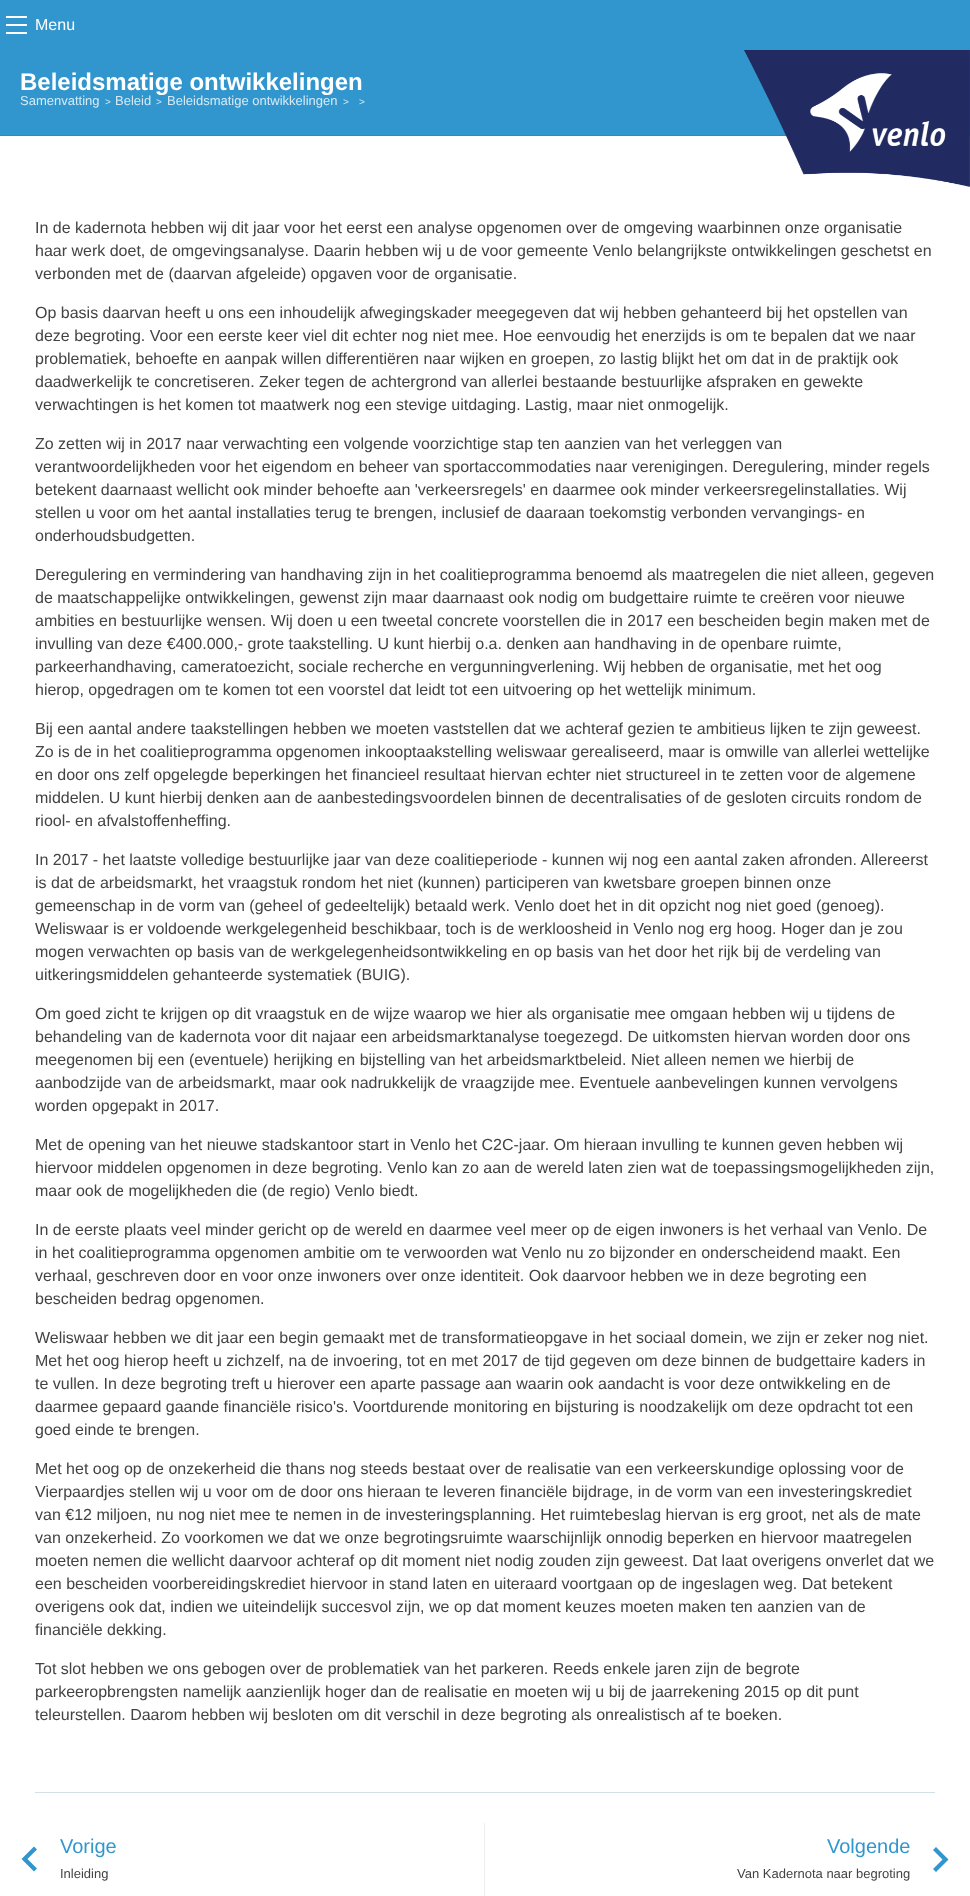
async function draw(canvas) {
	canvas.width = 970;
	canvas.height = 1896;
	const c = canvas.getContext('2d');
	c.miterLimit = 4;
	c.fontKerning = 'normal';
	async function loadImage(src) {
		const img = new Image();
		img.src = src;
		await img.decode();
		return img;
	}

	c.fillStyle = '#fff';
	c.fillRect(0, 0, 970, 1896);
	for (const [x, y, w, h, color] of [
		[0, 0, 970, 135, '#3296ce'],
		[6, 16, 21, 2, '#fff'],
		[6, 24, 21, 2, '#fff'],
		[6, 32, 21, 2, '#fff'],
	]) {
		c.fillStyle = color;
		c.fillRect(x, y, w, h);
	}
	c.font = '16px Liberation Sans';
	c.fillText('Menu', 35, 30);
	c.fillStyle = '#2f89c3';
	c.fillRect(0, 135, 970, 1);
	c.font = 'bold 24px Liberation Sans';
	c.fillStyle = '#fff';
	c.fillText('Beleidsmatige ontwikkelingen', 20, 90);
	c.font = '13px Liberation Sans';
	c.fillStyle = '#d6eaf5';
	c.fillText('Samenvatting', 20, 105);
	c.font = '10px Liberation Sans';
	c.fillText('>', 105, 105);
	c.font = '13px Liberation Sans';
	c.fillText('Beleid', 115, 105);
	c.font = '10px Liberation Sans';
	c.fillText('>', 156, 105);
	c.font = '13px Liberation Sans';
	c.fillText('Beleidsmatige ontwikkelingen', 167, 105);
	c.font = '10px Liberation Sans';
	c.fillText('>', 343, 105);
	c.fillText('>', 359, 105);
	c.drawImage(await loadImage('img1.png'), 744, 50, 226, 137);
	c.fillStyle = '#d3dfe4';
	c.fillRect(35, 1792, 900, 1);
	c.font = '16px Liberation Sans';
	c.fillStyle = '#434343';
	for (const [text, x, y] of [
		['In de kadernota hebben wij dit jaar voor het eerst een analyse opgenomen over de omgeving waarbinnen onze organisatie', 35, 233],
		['haar werk doet, de omgevingsanalyse. Daarin hebben wij u de voor gemeente Venlo belangrijkste ontwikkelingen geschetst en', 35, 256],
		['verbonden met de (daarvan afgeleide) opgaven voor de organisatie.', 35, 279],
		['Op basis daarvan heeft u ons een inhoudelijk afwegingskader meegegeven dat wij hebben gehanteerd bij het opstellen van', 35, 318],
		['deze begroting. Voor een eerste keer viel dit echter nog niet mee. Hoe eenvoudig het enerzijds is om te bepalen dat we naar', 35, 341],
		['problematiek, behoefte en aanpak willen differentiëren naar wijken en groepen, zo lastig blijkt het om dat in de praktijk ook', 35, 364],
		['daadwerkelijk te concretiseren. Zeker tegen de achtergrond van allerlei bestaande bestuurlijke afspraken en gewekte', 35, 387],
		['verwachtingen is het komen tot maatwerk nog een stevige uitdaging. Lastig, maar niet onmogelijk.', 35, 410],
		['Zo zetten wij in 2017 naar verwachting een volgende voorzichtige stap ten aanzien van het verleggen van', 35, 449],
		['verantwoordelijkheden voor het eigendom en beheer van sportaccommodaties naar verenigingen. Deregulering, minder regels', 35, 472],
		['betekent daarnaast wellicht ook minder behoefte aan \'verkeersregels\' en daarmee ook minder verkeersregelinstallaties. Wij', 35, 495],
		['stellen u voor om het aantal installaties terug te brengen, inclusief de daaraan toekomstig verbonden vervangings- en', 35, 518],
		['onderhoudsbudgetten.', 35, 541],
		['Deregulering en vermindering van handhaving zijn in het coalitieprogramma benoemd als maatregelen die niet alleen, gegeven', 35, 580],
		['de maatschappelijke ontwikkelingen, gewenst zijn maar daarnaast ook nodig om budgettaire ruimte te creëren voor nieuwe', 35, 603],
		['ambities en bestuurlijke wensen. Wij doen u een tweetal concrete voorstellen die in 2017 een bescheiden begin maken met de', 35, 626],
		['invulling van deze €400.000,- grote taakstelling. U kunt hierbij o.a. denken aan handhaving in de openbare ruimte,', 35, 649],
		['parkeerhandhaving, cameratoezicht, sociale recherche en vergunningverlening. Wij hebben de organisatie, met het oog', 35, 672],
		['hierop, opgedragen om te komen tot een voorstel dat leidt tot een uitvoering op het wettelijk minimum.', 35, 695],
		['Bij een aantal andere taakstellingen hebben we moeten vaststellen dat we achteraf gezien te ambitieus lijken te zijn geweest.', 35, 734],
		['Zo is de in het coalitieprogramma opgenomen inkooptaakstelling weliswaar gerealiseerd, maar is omwille van allerlei wettelijke', 35, 757],
		['en door ons zelf opgelegde beperkingen het financieel resultaat hiervan echter niet structureel in te zetten voor de algemene', 35, 780],
		['middelen. U kunt hierbij denken aan de aanbestedingsvoordelen binnen de decentralisaties of de gesloten circuits rondom de', 35, 803],
		['riool- en afvalstoffenheffing.', 35, 826],
		['In 2017 - het laatste volledige bestuurlijke jaar van deze coalitieperiode - kunnen wij nog een aantal zaken afronden. Allereerst', 35, 865],
		['is dat de arbeidsmarkt, het vraagstuk rondom het niet (kunnen) participeren van kwetsbare groepen binnen onze', 35, 888],
		['gemeenschap in de vorm van (geheel of gedeeltelijk) betaald werk. Venlo doet het in dit opzicht nog niet goed (genoeg).', 35, 911],
		['Weliswaar is er voldoende werkgelegenheid beschikbaar, toch is de werkloosheid in Venlo nog erg hoog. Hoger dan je zou', 35, 934],
		['mogen verwachten op basis van de werkgelegenheidsontwikkeling en op basis van het door het rijk bij de verdeling van', 35, 957],
		['uitkeringsmiddelen gehanteerde systematiek (BUIG).', 35, 980],
		['Om goed zicht te krijgen op dit vraagstuk en de wijze waarop we hier als organisatie mee omgaan hebben wij u tijdens de', 35, 1019],
		['behandeling van de kadernota voor dit najaar een arbeidsmarktanalyse toegezegd. De uitkomsten hiervan worden door ons', 35, 1042],
		['meegenomen bij een (eventuele) herijking en bijstelling van het arbeidsmarktbeleid. Niet alleen nemen we hierbij de', 35, 1065],
		['aanbodzijde van de arbeidsmarkt, maar ook nadrukkelijk de vraagzijde mee. Eventuele aanbevelingen kunnen vervolgens', 35, 1088],
		['worden opgepakt in 2017.', 35, 1111],
		['Met de opening van het nieuwe stadskantoor start in Venlo het C2C-jaar. Om hieraan invulling te kunnen geven hebben wij', 35, 1150],
		['hiervoor middelen opgenomen in deze begroting. Venlo kan zo aan de wereld laten zien wat de toepassingsmogelijkheden zijn,', 35, 1173],
		['maar ook de mogelijkheden die (de regio) Venlo biedt.', 35, 1196],
		['In de eerste plaats veel minder gericht op de wereld en daarmee veel meer op de eigen inwoners is het verhaal van Venlo. De', 35, 1235],
		['in het coalitieprogramma opgenomen ambitie om te verwoorden wat Venlo nu zo bijzonder en onderscheidend maakt. Een', 35, 1258],
		['verhaal, geschreven door en voor onze inwoners over onze identiteit. Ook daarvoor hebben we in deze begroting een', 35, 1281],
		['bescheiden bedrag opgenomen.', 35, 1304],
		['Weliswaar hebben we dit jaar een begin gemaakt met de transformatieopgave in het sociaal domein, we zijn er zeker nog niet.', 35, 1343],
		['Met het oog hierop heeft u zichzelf, na de invoering, tot en met 2017 de tijd gegeven om deze binnen de budgettaire kaders in', 35, 1366],
		['te vullen. In deze begroting treft u hierover een aparte passage aan waarin ook aandacht is voor deze ontwikkeling en de', 35, 1389],
		['daarmee gepaard gaande financiële risico\'s. Voortdurende monitoring en bijsturing is noodzakelijk om deze opdracht tot een', 35, 1412],
		['goed einde te brengen.', 35, 1435],
		['Met het oog op de onzekerheid die thans nog steeds bestaat over de realisatie van een verkeerskundige oplossing voor de', 35, 1474],
		['Vierpaardjes stellen wij u voor om de door ons hieraan te leveren financiële bijdrage, in de vorm van een investeringskrediet', 35, 1497],
		['van €12 miljoen, nu nog niet mee te nemen in de investeringsplanning. Het ruimtebeslag hiervan is erg groot, net als de mate', 35, 1520],
		['van onzekerheid. Zo voorkomen we dat we onze begrotingsruimte waarschijnlijk onnodig beperken en hiervoor maatregelen', 35, 1543],
		['moeten nemen die wellicht daarvoor achteraf op dit moment niet nodig zouden zijn geweest. Dat laat overigens onverlet dat we', 35, 1566],
		['een bescheiden voorbereidingskrediet hiervoor in stand laten en uiteraard voortgaan op de ingeslagen weg. Dat betekent', 35, 1589],
		['overigens ook dat, indien we uiteindelijk succesvol zijn, we op dat moment keuzes moeten maken ten aanzien van de', 35, 1612],
		['financiële dekking.', 35, 1635],
		['Tot slot hebben we ons gebogen over de problematiek van het parkeren. Reeds enkele jaren zijn de begrote', 35, 1674],
		['parkeeropbrengsten namelijk aanzienlijk hoger dan de realisatie en moeten wij u bij de jaarrekening 2015 op dit punt', 35, 1697],
		['teleurstellen. Daarom hebben wij besloten om dit verschil in deze begroting als onrealistisch af te boeken.', 35, 1720],
	]) {
		c.fillText(text, x, y);
	}
	c.fillStyle = '#eee';
	c.fillRect(484, 1823, 1, 73);
	c.fillStyle = '#3296ce';
	c.beginPath();
	c.moveTo(37, 1868.5);
	c.lineTo(34, 1871.5);
	c.lineTo(21.5, 1859);
	c.lineTo(34, 1846.5);
	c.lineTo(37, 1849.5);
	c.lineTo(27.5, 1859);
	c.closePath();
	c.fill();
	c.font = '20px Liberation Sans';
	c.fillText('Vorige', 60, 1853);
	c.font = '13px Liberation Sans';
	c.fillStyle = '#434343';
	c.fillText('Inleiding', 60, 1878);
	c.font = '20px Liberation Sans';
	c.fillStyle = '#3296ce';
	c.fillText('Volgende', 827, 1853);
	c.beginPath();
	c.moveTo(933, 1869);
	c.lineTo(942.5, 1859.5);
	c.lineTo(933, 1850);
	c.lineTo(936, 1847);
	c.lineTo(948.5, 1859.5);
	c.lineTo(936, 1872);
	c.closePath();
	c.fill();
	c.font = '13px Liberation Sans';
	c.fillStyle = '#434343';
	c.fillText('Van Kadernota naar begroting', 737, 1878);
}

draw(document.querySelector('canvas'));
